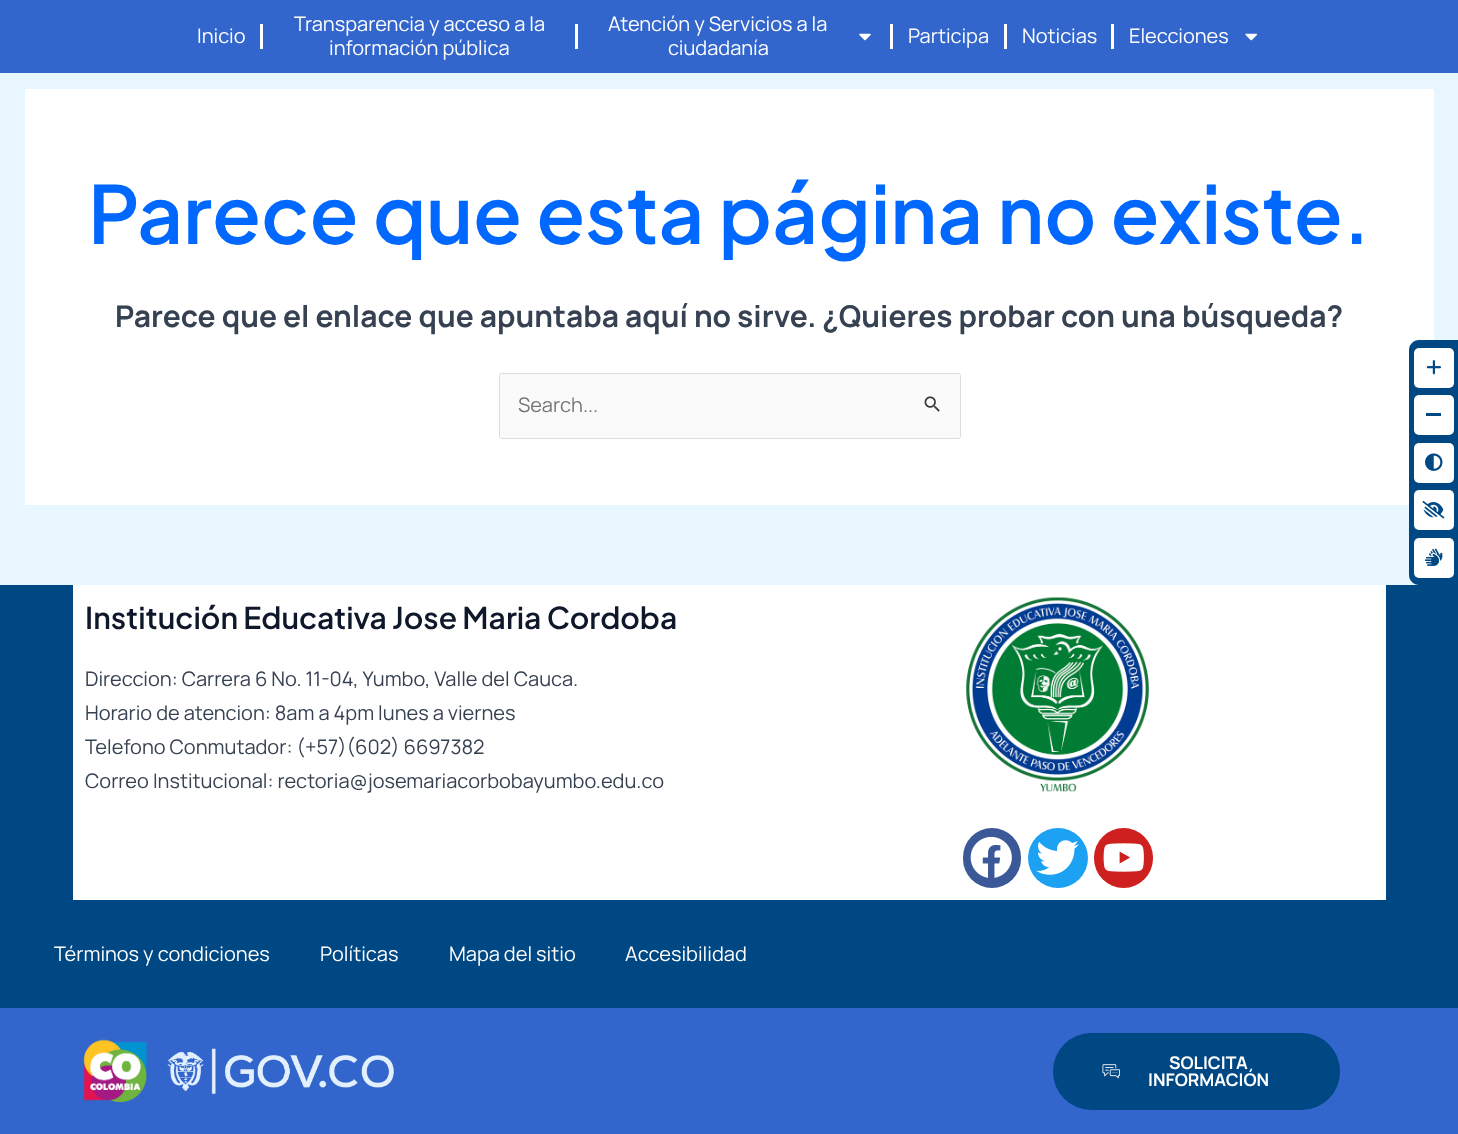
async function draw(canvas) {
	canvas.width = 1458;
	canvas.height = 1134;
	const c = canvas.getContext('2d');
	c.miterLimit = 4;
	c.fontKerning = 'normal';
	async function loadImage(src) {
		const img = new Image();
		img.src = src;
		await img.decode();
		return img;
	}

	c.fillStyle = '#e7f6ff';
	c.fillRect(0, 0, 1458, 1134);
	c.fillStyle = '#36c';
	c.fillRect(0, 0, 1458, 73);
	c.font = '20px Manrope';
	c.fillStyle = '#fff';
	c.fillText('Inicio', 197, 43);
	c.fillRect(260, 24, 3, 25);
	c.fillText('Transparencia y acceso a la', 294, 31);
	c.fillText('información pública', 329, 55);
	c.fillRect(575, 24, 3, 25);
	c.fillText('Atención y Servicios a la', 608, 31);
	c.drawImage(await loadImage('img1.png'), 859, 33, 12, 8);
	c.fillText('ciudadanía', 668, 55);
	c.fillRect(890, 24, 3, 25);
	c.fillText('Participa', 908, 43);
	c.fillRect(1004, 24, 3, 25);
	c.fillText('Noticias', 1022, 43);
	c.fillRect(1111, 24, 3, 25);
	c.fillText('Elecciones', 1129, 43);
	c.drawImage(await loadImage('img2.png'), 1245, 33, 12, 8);
	c.fillRect(25, 89, 1409, 416);
	c.font = '600 80px Plus Jakarta Sans';
	c.fillStyle = '#0067ff';
	c.fillText('Parece que esta página no existe.', 88, 244);
	c.font = 'bold 30px Manrope';
	c.fillStyle = '#364151';
	c.fillText('Parece que el enlace que apuntaba aquí no sirve. ¿Quieres probar con una búsqueda?', 115, 327);
	c.fillStyle = '#fafafa';
	c.beginPath();
	c.roundRect(499.5, 373.5, 461, 65, 2);
	c.fill();
	c.strokeStyle = '#ddd';
	c.stroke();
	c.font = '20px Manrope';
	c.fillStyle = '#757575';
	c.fillText('Search...', 518, 412);
	c.drawImage(await loadImage('img3.png'), 924, 396, 16, 16);
	c.fillStyle = '#004884';
	c.fillRect(0, 585, 1458, 423);
	c.fillStyle = '#fff';
	c.fillRect(73, 585, 656, 315);
	c.font = '600 30px Plus Jakarta Sans';
	c.fillStyle = '#0f172a';
	c.fillText('Institución Educativa Jose Maria Cordoba', 85, 629);
	c.font = '20px Manrope';
	c.fillStyle = '#364151';
	for (const [text, x, y] of [
		['Direccion: Carrera 6 No. 11-04, Yumbo, Valle del Cauca.', 85, 686],
		['Horario de atencion: 8am a 4pm lunes a viernes', 85, 720],
		['Telefono Conmutador: (+57)(602) 6697382', 85, 754],
		['Correo Institucional: rectoria@josemariacorbobayumbo.edu.co', 85, 788],
	]) {
		c.fillText(text, x, y);
	}
	c.fillStyle = '#fff';
	c.fillRect(729, 585, 657, 315);
	c.drawImage(await loadImage('img4.png'), 966, 597, 183, 195);
	c.fillStyle = '#3b5998';
	c.beginPath();
	c.roundRect(963, 828, 58, 60, 29);
	c.fill();
	c.drawImage(await loadImage('img5.png'), 970, 836, 42, 42);
	c.fillStyle = '#1da1f2';
	c.beginPath();
	c.arc(1058, 858, 30, 0, 2 * Math.PI);
	c.fill();
	c.drawImage(await loadImage('img6.png'), 1036, 840, 43, 35);
	c.fillStyle = '#cd201f';
	c.beginPath();
	c.roundRect(1094, 828, 59, 60, 29.5);
	c.fill();
	c.drawImage(await loadImage('img7.png'), 1103, 843, 41, 29);
	c.fillStyle = '#004884';
	c.beginPath();
	c.moveTo(1419, 340);
	c.lineTo(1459, 340);
	c.lineTo(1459, 585);
	c.lineTo(1419, 585);
	c.bezierCurveTo(1413.5, 585, 1409, 580.5, 1409, 575);
	c.lineTo(1409, 350);
	c.bezierCurveTo(1409, 344.5, 1413.5, 340, 1419, 340);
	c.closePath();
	c.fill();
	c.fillStyle = '#fff';
	c.beginPath();
	c.roundRect(1414, 348, 40, 40, 5);
	c.fill();
	c.drawImage(await loadImage('img8.png'), 1426, 360, 15, 15);
	c.beginPath();
	c.roundRect(1414, 395, 40, 40, 5);
	c.fill();
	c.fillStyle = '#004884';
	c.fillRect(1426, 413, 15, 3);
	c.fillStyle = '#fff';
	c.beginPath();
	c.roundRect(1414, 443, 40, 40, 5);
	c.fill();
	c.drawImage(await loadImage('img9.png'), 1425, 453, 18, 18);
	c.beginPath();
	c.roundRect(1414, 490, 40, 40, 5);
	c.fill();
	c.drawImage(await loadImage('img10.png'), 1422, 501, 23, 18);
	c.beginPath();
	c.roundRect(1414, 538, 40, 40, 5);
	c.fill();
	c.drawImage(await loadImage('img11.png'), 1424, 548, 19, 18);
	for (const [text, x, y] of [
		['Términos y condiciones', 54, 961],
		['Políticas', 320, 961],
		['Mapa del sitio', 449, 961],
		['Accesibilidad', 625, 961],
	]) {
		c.fillText(text, x, y);
	}
	c.fillStyle = '#36c';
	c.fillRect(0, 1008, 1458, 126);
	c.drawImage(await loadImage('img12.png'), 83, 1039, 64, 63);
	c.drawImage(await loadImage('img13.png'), 167, 1048, 227, 46);
	c.fillStyle = '#004884';
	c.beginPath();
	c.roundRect(1053, 1033, 287, 77, 38);
	c.fill();
	c.drawImage(await loadImage('img14.png'), 1102, 1064, 18, 15);
	c.font = 'bold 17.5px Manrope';
	c.fillStyle = '#fff';
	c.fillText('SOLICITA', 1169, 1069);
	c.fillText('INFORMACIÓN', 1148, 1086);
}

draw(document.querySelector('canvas'));
